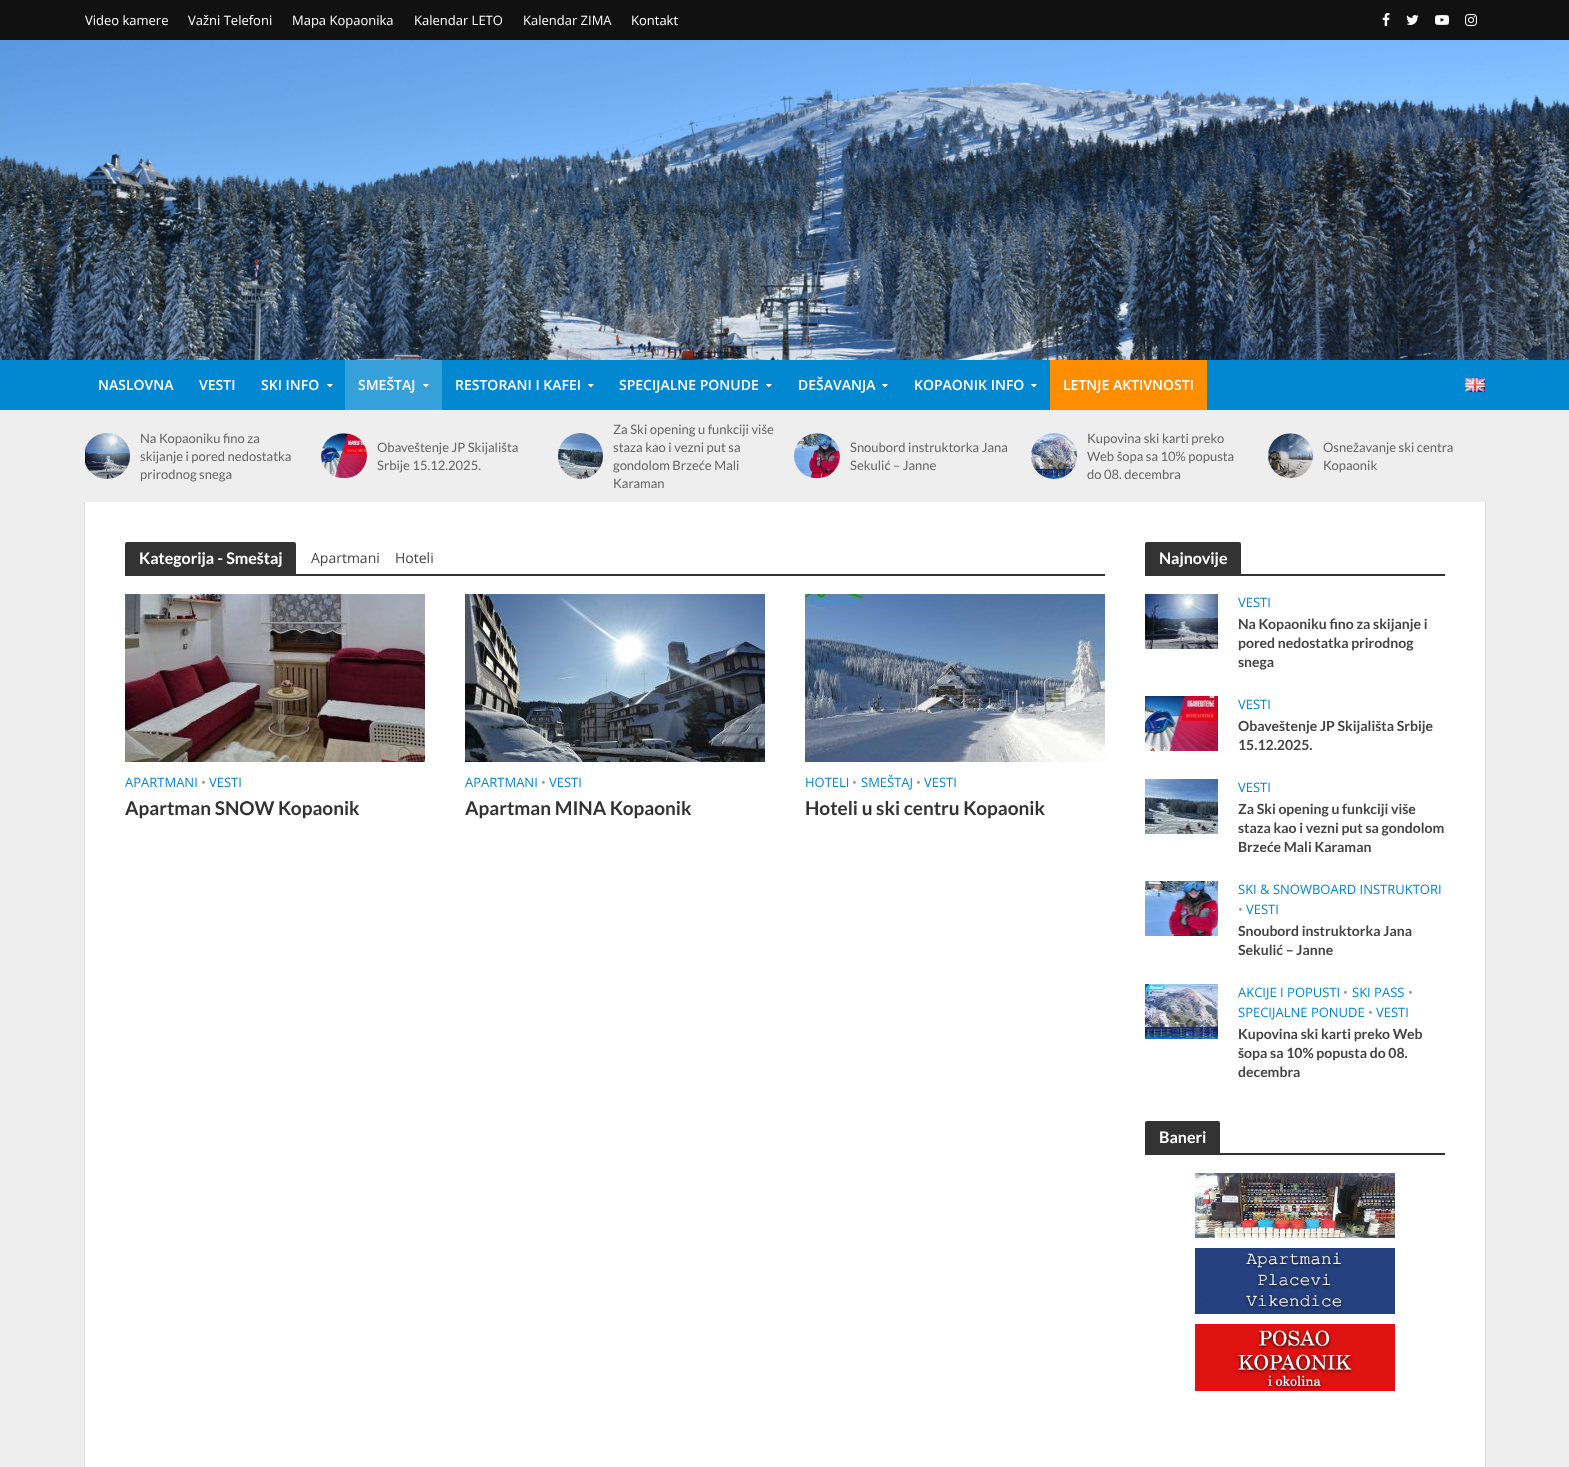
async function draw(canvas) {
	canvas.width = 1569;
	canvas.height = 1467;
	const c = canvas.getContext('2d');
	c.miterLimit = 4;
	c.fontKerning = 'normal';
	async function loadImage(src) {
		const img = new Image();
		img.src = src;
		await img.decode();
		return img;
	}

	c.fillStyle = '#eee';
	c.fillRect(0, 0, 1569, 1467);
	c.fillStyle = '#111';
	c.fillRect(0, 0, 1569, 40);
	c.font = '13px Open Sans';
	c.fillStyle = '#fff';
	for (const [text, x, y] of [
		['Video kamere', 85, 25],
		['Važni Telefoni', 188, 25],
		['Mapa Kopaonika', 292, 25],
		['Kalendar LETO', 414, 25],
		['Kalendar ZIMA', 523, 25],
		['Kontakt', 631, 25],
	]) {
		c.fillText(text, x, y);
	}
	c.drawImage(await loadImage('img1.png'), 1382, 13, 8, 13);
	c.drawImage(await loadImage('img2.png'), 1406, 15, 13, 10);
	c.drawImage(await loadImage('img3.png'), 1435, 15, 14, 10);
	c.drawImage(await loadImage('img4.png'), 1465, 14, 12, 12);
	c.drawImage(await loadImage('img5.png'), 0, 40, 1569, 320);
	c.fillStyle = '#0288d1';
	c.fillRect(0, 360, 1569, 50);
	c.font = '600 14px Open Sans';
	c.fillStyle = '#fff';
	for (const [text, x, y] of [
		['NASLOVNA', 98, 390],
		['VESTI', 199, 390],
		['SKI INFO', 261, 390],
	]) {
		c.fillText(text, x, y);
	}
	c.drawImage(await loadImage('img6.png'), 327, 384, 6, 4);
	c.fillStyle = '#35a0da';
	c.fillRect(345, 360, 97, 50);
	c.fillStyle = '#fff';
	c.fillText('SMEŠTAJ', 358, 390);
	c.drawImage(await loadImage('img7.png'), 423, 384, 6, 4);
	c.fillText('RESTORANI I KAFEI', 455, 390);
	c.drawImage(await loadImage('img6.png'), 588, 384, 6, 4);
	c.fillText('SPECIJALNE PONUDE', 619, 390);
	c.drawImage(await loadImage('img6.png'), 766, 384, 6, 4);
	c.fillText('DEŠAVANJA', 798, 390);
	c.drawImage(await loadImage('img6.png'), 882, 384, 6, 4);
	c.fillText('KOPAONIK INFO', 914, 390);
	c.drawImage(await loadImage('img6.png'), 1031, 384, 6, 4);
	c.fillStyle = '#ff8d00';
	c.fillRect(1050, 360, 157, 50);
	c.fillStyle = '#fff';
	c.fillText('LETNJE AKTIVNOSTI', 1063, 390);
	c.drawImage(await loadImage('img8.png'), 1465, 378, 20, 14);
	c.strokeStyle = '#ddd';
	c.strokeRect(84.5, 501.5, 1401, 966);
	c.fillStyle = '#eee';
	c.fillRect(84, 501, 1402, 1);
	c.drawImage(await loadImage('img9.png'), 85, 433, 45, 46);
	c.font = '13px Lato';
	c.fillStyle = '#666';
	for (const [text, x, y] of [
		['Na Kopaoniku fino za', 140, 443],
		['skijanje i pored nedostatka', 140, 461],
		['prirodnog snega', 140, 479],
	]) {
		c.fillText(text, x, y);
	}
	c.drawImage(await loadImage('img10.png'), 321, 433, 46, 46);
	c.fillText('Obaveštenje JP Skijališta', 377, 452);
	c.fillText('Srbije 15.12.2025.', 377, 470);
	c.drawImage(await loadImage('img11.png'), 558, 433, 45, 46);
	for (const [text, x, y] of [
		['Za Ski opening u funkciji više', 613, 434],
		['staza kao i vezni put sa', 613, 452],
		['gondolom Brzeće Mali', 613, 470],
		['Karaman', 613, 488],
	]) {
		c.fillText(text, x, y);
	}
	c.drawImage(await loadImage('img12.png'), 794, 433, 46, 46);
	c.fillText('Snoubord instruktorka Jana', 850, 452);
	c.fillText('Sekulić – Janne', 850, 470);
	c.drawImage(await loadImage('img13.png'), 1031, 433, 46, 46);
	for (const [text, x, y] of [
		['Kupovina ski karti preko', 1087, 443],
		['Web šopa sa 10% popusta', 1087, 461],
		['do 08. decembra', 1087, 479],
	]) {
		c.fillText(text, x, y);
	}
	c.drawImage(await loadImage('img14.png'), 1268, 433, 45, 46);
	c.fillText('Osnežavanje ski centra', 1323, 452);
	c.fillText('Kopaonik', 1323, 470);
	c.fillStyle = '#fff';
	c.fillRect(85, 502, 1400, 965);
	c.fillStyle = '#333';
	c.beginPath();
	c.roundRect(125, 542, 171, 32, [2, 2, 0, 0]);
	c.fill();
	c.font = 'bold 16px Lato';
	c.fillStyle = '#fff';
	c.fillText('Kategorija - Smeštaj', 139, 564);
	c.font = '14px Open Sans';
	c.fillStyle = '#444';
	c.fillText('Apartmani', 311, 563);
	c.fillText('Hoteli', 395, 563);
	c.fillStyle = '#333';
	c.fillRect(125, 574, 980, 2);
	c.drawImage(await loadImage('img15.png'), 125, 594, 300, 168);
	c.font = '13px Open Sans';
	c.fillStyle = '#0288d1';
	c.fillText('APARTMANI', 125, 787);
	c.fillStyle = '#999';
	c.fillText('•', 201, 787);
	c.fillStyle = '#0288d1';
	c.fillText('VESTI', 209, 787);
	c.font = 'bold 19px Lato';
	c.fillStyle = '#333';
	c.fillText('Apartman SNOW Kopaonik', 125, 815);
	c.drawImage(await loadImage('img16.png'), 465, 594, 300, 168);
	c.font = '13px Open Sans';
	c.fillStyle = '#0288d1';
	c.fillText('APARTMANI', 465, 787);
	c.fillStyle = '#999';
	c.fillText('•', 541, 787);
	c.fillStyle = '#0288d1';
	c.fillText('VESTI', 549, 787);
	c.font = 'bold 19px Lato';
	c.fillStyle = '#333';
	c.fillText('Apartman MINA Kopaonik', 465, 815);
	c.drawImage(await loadImage('img17.png'), 805, 594, 300, 168);
	c.font = '13px Open Sans';
	c.fillStyle = '#0288d1';
	c.fillText('HOTELI', 805, 787);
	c.fillStyle = '#999';
	c.fillText('•', 852, 787);
	c.fillStyle = '#0288d1';
	c.fillText('SMEŠTAJ', 861, 787);
	c.fillStyle = '#999';
	c.fillText('•', 916, 787);
	c.fillStyle = '#0288d1';
	c.fillText('VESTI', 924, 787);
	c.font = 'bold 19px Lato';
	c.fillStyle = '#333';
	c.fillText('Hoteli u ski centru Kopaonik', 805, 815);
	c.beginPath();
	c.roundRect(1145, 542, 96, 32, [2, 2, 0, 0]);
	c.fill();
	c.font = 'bold 16px Lato';
	c.fillStyle = '#fff';
	c.fillText('Najnovije', 1159, 564);
	c.fillStyle = '#333';
	c.fillRect(1145, 574, 300, 2);
	c.drawImage(await loadImage('img18.png'), 1145, 594, 73, 55);
	c.font = '13px Open Sans';
	c.fillStyle = '#0288d1';
	c.fillText('VESTI', 1238, 607);
	c.font = 'bold 14px Lato';
	c.fillStyle = '#444';
	for (const [text, x, y] of [
		['Na Kopaoniku fino za skijanje i', 1238, 629],
		['pored nedostatka prirodnog', 1238, 648],
		['snega', 1238, 667],
	]) {
		c.fillText(text, x, y);
	}
	c.drawImage(await loadImage('img19.png'), 1145, 696, 73, 55);
	c.font = '13px Open Sans';
	c.fillStyle = '#0288d1';
	c.fillText('VESTI', 1238, 709);
	c.font = 'bold 14px Lato';
	c.fillStyle = '#444';
	c.fillText('Obaveštenje JP Skijališta Srbije', 1238, 731);
	c.fillText('15.12.2025.', 1238, 750);
	c.drawImage(await loadImage('img20.png'), 1145, 779, 73, 55);
	c.font = '13px Open Sans';
	c.fillStyle = '#0288d1';
	c.fillText('VESTI', 1238, 792);
	c.font = 'bold 14px Lato';
	c.fillStyle = '#444';
	for (const [text, x, y] of [
		['Za Ski opening u funkciji više', 1238, 814],
		['staza kao i vezni put sa gondolom', 1238, 833],
		['Brzeće Mali Karaman', 1238, 852],
	]) {
		c.fillText(text, x, y);
	}
	c.drawImage(await loadImage('img21.png'), 1145, 881, 73, 55);
	c.font = '13px Open Sans';
	c.fillStyle = '#0288d1';
	c.fillText('SKI & SNOWBOARD INSTRUKTORI', 1238, 894);
	c.fillStyle = '#999';
	c.fillText('•', 1238, 914);
	c.fillStyle = '#0288d1';
	c.fillText('VESTI', 1246, 914);
	c.font = 'bold 14px Lato';
	c.fillStyle = '#444';
	c.fillText('Snoubord instruktorka Jana', 1238, 936);
	c.fillText('Sekulić – Janne', 1238, 955);
	c.drawImage(await loadImage('img22.png'), 1145, 984, 73, 55);
	c.font = '13px Open Sans';
	c.fillStyle = '#0288d1';
	c.fillText('AKCIJE I POPUSTI', 1238, 997);
	c.fillStyle = '#999';
	c.fillText('•', 1343, 997);
	c.fillStyle = '#0288d1';
	c.fillText('SKI PASS', 1352, 997);
	c.fillStyle = '#999';
	c.fillText('•', 1408, 997);
	c.fillStyle = '#0288d1';
	c.fillText('SPECIJALNE PONUDE', 1238, 1017);
	c.fillStyle = '#999';
	c.fillText('•', 1368, 1017);
	c.fillStyle = '#0288d1';
	c.fillText('VESTI', 1376, 1017);
	c.font = 'bold 14px Lato';
	c.fillStyle = '#444';
	for (const [text, x, y] of [
		['Kupovina ski karti preko Web', 1238, 1039],
		['šopa sa 10% popusta do 08.', 1238, 1058],
		['decembra', 1238, 1077],
	]) {
		c.fillText(text, x, y);
	}
	c.fillStyle = '#333';
	c.beginPath();
	c.roundRect(1145, 1121, 75, 32, [2, 2, 0, 0]);
	c.fill();
	c.font = 'bold 16px Lato';
	c.fillStyle = '#fff';
	c.fillText('Baneri', 1159, 1143);
	c.fillStyle = '#333';
	c.fillRect(1145, 1153, 300, 2);
	c.drawImage(await loadImage('img23.png'), 1195, 1173, 200, 65);
	c.drawImage(await loadImage('img24.png'), 1195, 1248, 200, 66);
	c.drawImage(await loadImage('img25.png'), 1195, 1324, 200, 67);
}

draw(document.querySelector('canvas'));
